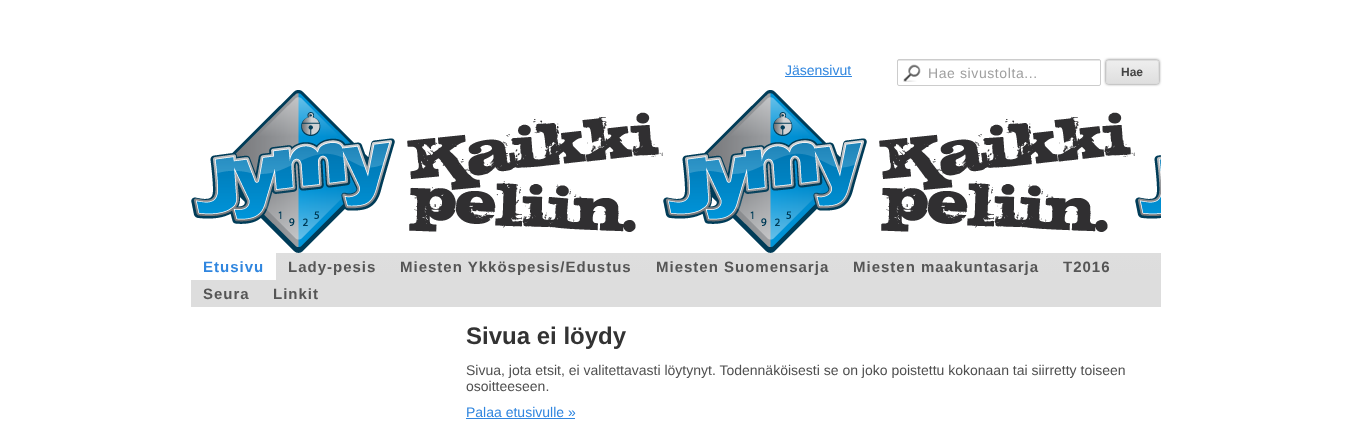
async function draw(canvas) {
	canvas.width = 1351;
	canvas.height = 432;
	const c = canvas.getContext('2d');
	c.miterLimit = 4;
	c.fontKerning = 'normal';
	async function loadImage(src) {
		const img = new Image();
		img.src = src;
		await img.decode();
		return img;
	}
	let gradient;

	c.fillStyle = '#fff';
	c.fillRect(0, 0, 1351, 432);
	c.font = '14px Liberation Sans';
	c.fillStyle = '#3086df';
	c.fillText('Jäsensivut', 785, 75);
	c.fillRect(785, 76, 67, 1);
	c.drawImage(await loadImage('img1.png'), 903, 64, 18, 18);
	c.fillStyle = '#e6e6e6';
	c.beginPath();
	c.moveTo(899, 61);
	c.lineTo(1100, 61);
	c.lineTo(1100, 62);
	c.bezierCurveTo(1100, 61, 1100, 60, 1099, 60);
	c.lineTo(898, 60);
	c.lineTo(898, 62);
	c.bezierCurveTo(898, 61, 898, 61, 899, 61);
	c.closePath();
	c.fill();
	c.beginPath();
	c.roundRect(897.5, 59.5, 203, 26, 1.5);
	c.strokeStyle = '#ccc';
	c.stroke();
	c.letterSpacing = '0.6px';
	c.fillStyle = '#9f9f9f';
	c.fillText('Hae sivustolta...', 928, 78);
	c.fillStyle = '#666';
	c.filter = 'blur(1.5px)';
	c.beginPath();
	c.roundRect(1106, 60, 53, 24, 2);
	c.fill();
	c.filter = 'none';
	c.save();
	c.beginPath();
	c.roundRect(1106, 60, 53, 24, 2);
	c.clip();
	gradient = c.createLinearGradient(1107, 61, 1107, 83);
	gradient.addColorStop(0.05, '#ededed');
	gradient.addColorStop(1, '#dfdfdf');
	c.fillStyle = gradient;
	c.fillRect(1106, 61, 53, 22);
	c.restore();
	c.beginPath();
	c.roundRect(1106.5, 60.5, 52, 23, 1.5);
	c.strokeStyle = '#dcdcdc';
	c.stroke();
	c.letterSpacing = '0px';
	c.font = 'bold 12px Liberation Sans';
	c.fillStyle = '#444';
	c.fillText('Hae', 1121, 76);
	c.drawImage(await loadImage('img2.png'), 191, 90, 970, 163);
	gradient = c.createLinearGradient(676, 253, 676, 307);
	gradient.addColorStop(0, '#dedede');
	gradient.addColorStop(0.39, '#ddd');
	gradient.addColorStop(1, '#ddd');
	c.fillStyle = gradient;
	c.fillRect(191, 253, 970, 54);
	c.fillStyle = '#fff';
	c.fillRect(191, 253, 85, 27);
	c.letterSpacing = '1px';
	c.font = 'bold 15px Liberation Sans';
	c.fillStyle = '#3086df';
	c.fillText('Etusivu', 203, 272);
	c.fillStyle = '#555';
	for (const [text, x, y] of [
		['Lady-pesis', 288, 272],
		['Miesten Ykköspesis/Edustus', 400, 272],
		['Miesten Suomensarja', 656, 272],
		['Miesten maakuntasarja', 853, 272],
		['T2016', 1063, 272],
		['Seura', 203, 299],
		['Linkit', 273, 299],
	]) {
		c.fillText(text, x, y);
	}
	c.letterSpacing = '0px';
	c.font = 'bold 24px Liberation Sans';
	c.fillStyle = '#333';
	c.fillText('Sivua ei löydy', 466, 344);
	c.font = '14px Liberation Sans';
	c.fillStyle = '#4f4f4f';
	c.fillText('Sivua, jota etsit, ei valitettavasti löytynyt. Todennäköisesti se on joko poistettu kokonaan tai siirretty toiseen', 466, 375);
	c.fillText('osoitteeseen.', 466, 391);
	c.fillStyle = '#3086df';
	c.fillText('Palaa etusivulle »', 466, 417);
	c.fillRect(466, 418, 109, 1);
}

draw(document.querySelector('canvas'));
